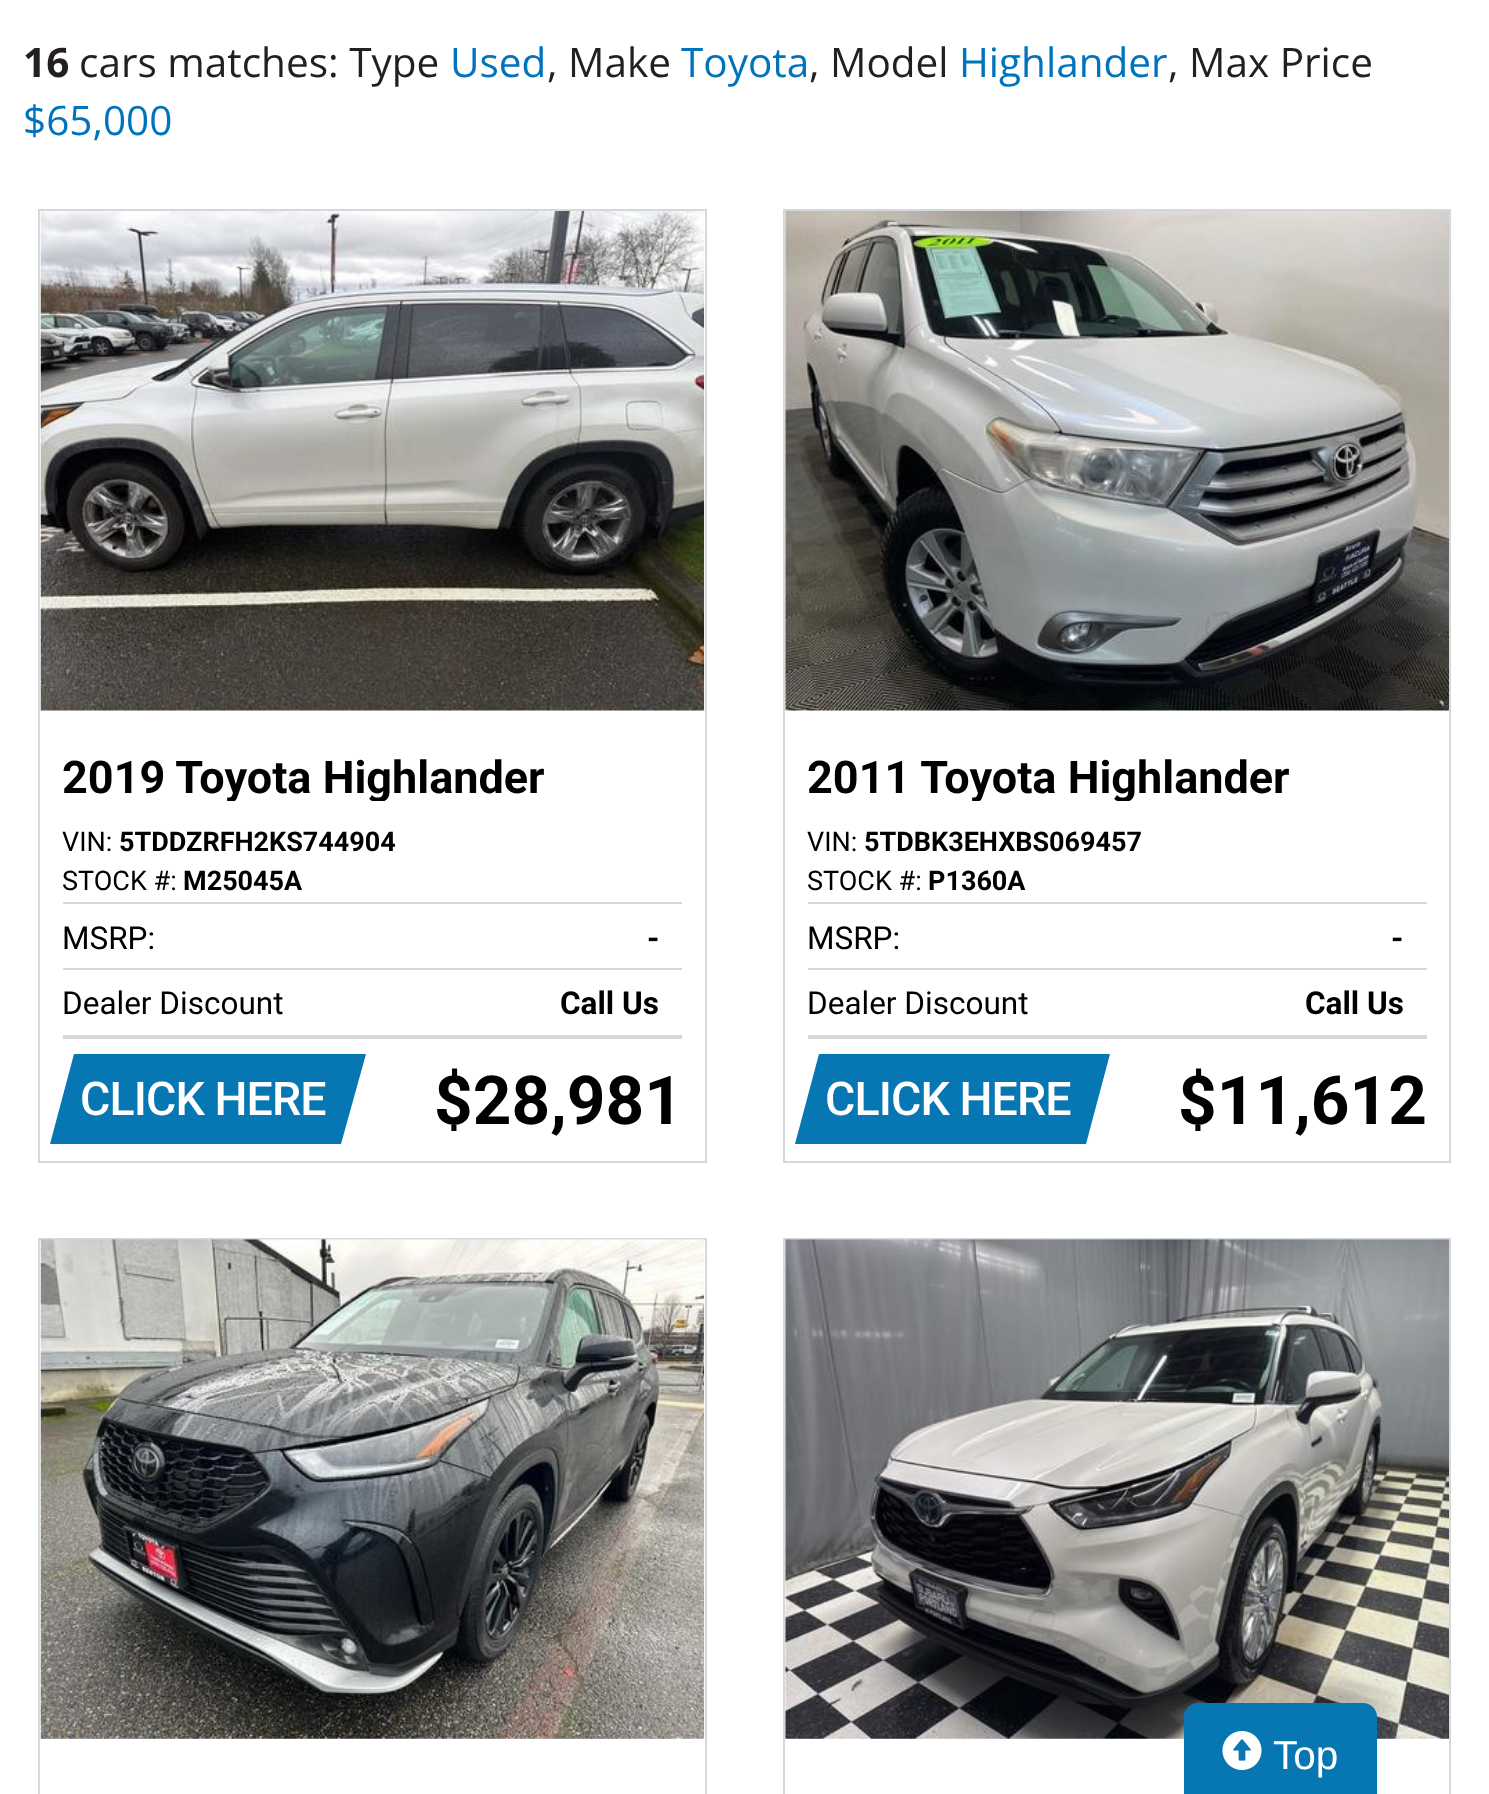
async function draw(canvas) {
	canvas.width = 1489;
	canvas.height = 1794;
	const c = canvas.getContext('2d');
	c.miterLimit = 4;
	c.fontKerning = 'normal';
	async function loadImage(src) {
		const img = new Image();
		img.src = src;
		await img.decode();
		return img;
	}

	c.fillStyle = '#fff';
	c.fillRect(0, 0, 1489, 1794);
	c.font = 'bold 40.5px Open Sans';
	c.fillStyle = '#231f20';
	c.fillText('16', 23, 77);
	c.font = '40.5px Open Sans';
	c.fillText('cars matches: Type', 79, 77);
	c.fillStyle = '#0073bd';
	c.fillText('Used', 450, 77);
	c.fillStyle = '#231f20';
	c.fillText(', Make', 547, 77);
	c.fillStyle = '#0073bd';
	c.fillText('Toyota', 681, 77);
	c.fillStyle = '#231f20';
	c.fillText(', Model', 809, 77);
	c.fillStyle = '#0073bd';
	c.fillText('Highlander', 959, 77);
	c.fillStyle = '#231f20';
	c.fillText(', Max Price', 1168, 77);
	c.fillStyle = '#0073bd';
	c.fillText('$65,000', 23, 135);
	c.strokeStyle = '#d4d8d9';
	c.lineWidth = 2;
	c.strokeRect(39, 210, 667, 952);
	c.drawImage(await loadImage('img1.png'), 40, 211, 665, 500);
	c.save();
	c.beginPath();
	c.rect(63, 752, 482, 49);
	c.clip();
	c.font = 'bold 45px Roboto';
	c.fillStyle = '#000';
	c.fillText('2019 Toyota Highlander', 62, 793);
	c.restore();
	c.font = '27px Roboto';
	c.fillStyle = '#000';
	c.fillText('VIN:', 62, 851);
	c.font = 'bold 27px Roboto';
	c.fillText('5TDDZRFH2KS744904', 119, 851);
	c.font = '27px Roboto';
	c.fillText('STOCK #:', 62, 890);
	c.font = 'bold 27px Roboto';
	c.fillText('M25045A', 183, 890);
	c.fillStyle = '#d4d8d9';
	c.fillRect(63, 902, 619, 2);
	c.fillRect(63, 968, 619, 2);
	c.font = '31.5px Roboto';
	c.fillStyle = '#000';
	c.fillText('MSRP:', 62, 949);
	c.font = 'bold 31.5px Roboto';
	c.fillText('-', 647, 949);
	c.fillStyle = '#d4d8d9';
	c.fillRect(63, 1035, 619, 4);
	c.font = '31.5px Roboto';
	c.fillStyle = '#000';
	c.fillText('Dealer Discount', 62, 1014);
	c.font = 'bold 31.5px Roboto';
	c.fillText('Call Us', 560, 1014);
	c.fillStyle = '#0777b3';
	c.beginPath();
	c.moveTo(74, 1054);
	c.lineTo(366, 1054);
	c.lineTo(341, 1144);
	c.lineTo(50, 1144);
	c.closePath();
	c.fill();
	c.letterSpacing = '-0.9px';
	c.font = '500 46.5px Roboto';
	c.fillStyle = '#fff';
	c.fillText('CLICK HERE', 80, 1115);
	c.letterSpacing = '0px';
	c.font = 'bold 67.5px Roboto';
	c.fillStyle = '#000';
	c.fillText('$28,981', 434, 1124);
	c.strokeRect(784, 210, 666, 952);
	c.drawImage(await loadImage('img2.png'), 785, 211, 664, 500);
	c.save();
	c.beginPath();
	c.rect(808, 752, 481, 49);
	c.clip();
	c.font = 'bold 45px Roboto';
	c.fillText('2011 Toyota Highlander', 807, 793);
	c.restore();
	c.font = '27px Roboto';
	c.fillText('VIN:', 807, 851);
	c.font = 'bold 27px Roboto';
	c.fillText('5TDBK3EHXBS069457', 864, 851);
	c.font = '27px Roboto';
	c.fillText('STOCK #:', 807, 890);
	c.font = 'bold 27px Roboto';
	c.fillText('P1360A', 928, 890);
	c.fillStyle = '#d4d8d9';
	c.fillRect(808, 902, 619, 2);
	c.fillRect(808, 968, 619, 2);
	c.font = '31.5px Roboto';
	c.fillStyle = '#000';
	c.fillText('MSRP:', 807, 949);
	c.font = 'bold 31.5px Roboto';
	c.fillText('-', 1391, 949);
	c.fillStyle = '#d4d8d9';
	c.fillRect(808, 1035, 619, 4);
	c.font = '31.5px Roboto';
	c.fillStyle = '#000';
	c.fillText('Dealer Discount', 807, 1014);
	c.font = 'bold 31.5px Roboto';
	c.fillText('Call Us', 1305, 1014);
	c.fillStyle = '#0777b3';
	c.beginPath();
	c.moveTo(819, 1054);
	c.lineTo(1110, 1054);
	c.lineTo(1086, 1144);
	c.lineTo(795, 1144);
	c.closePath();
	c.fill();
	c.letterSpacing = '-0.9px';
	c.font = '500 46.5px Roboto';
	c.fillStyle = '#fff';
	c.fillText('CLICK HERE', 825, 1115);
	c.letterSpacing = '0px';
	c.font = 'bold 67.5px Roboto';
	c.fillStyle = '#000';
	c.fillText('$11,612', 1178, 1124);
	c.strokeRect(39, 1239, 667, 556);
	c.drawImage(await loadImage('img3.png'), 40, 1239, 665, 500);
	c.strokeRect(784, 1239, 666, 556);
	c.drawImage(await loadImage('img4.png'), 785, 1239, 664, 500);
	c.fillStyle = '#0777b3';
	c.beginPath();
	c.roundRect(1185, 1704, 191, 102, 13);
	c.fill();
	c.strokeStyle = '#0777b3';
	c.stroke();
	c.drawImage(await loadImage('img5.png'), 1222, 1731, 40, 39);
	c.font = '40.5px Liberation Sans';
	c.fillStyle = '#fff';
	c.fillText('Top', 1273, 1769);
}

draw(document.querySelector('canvas'));
